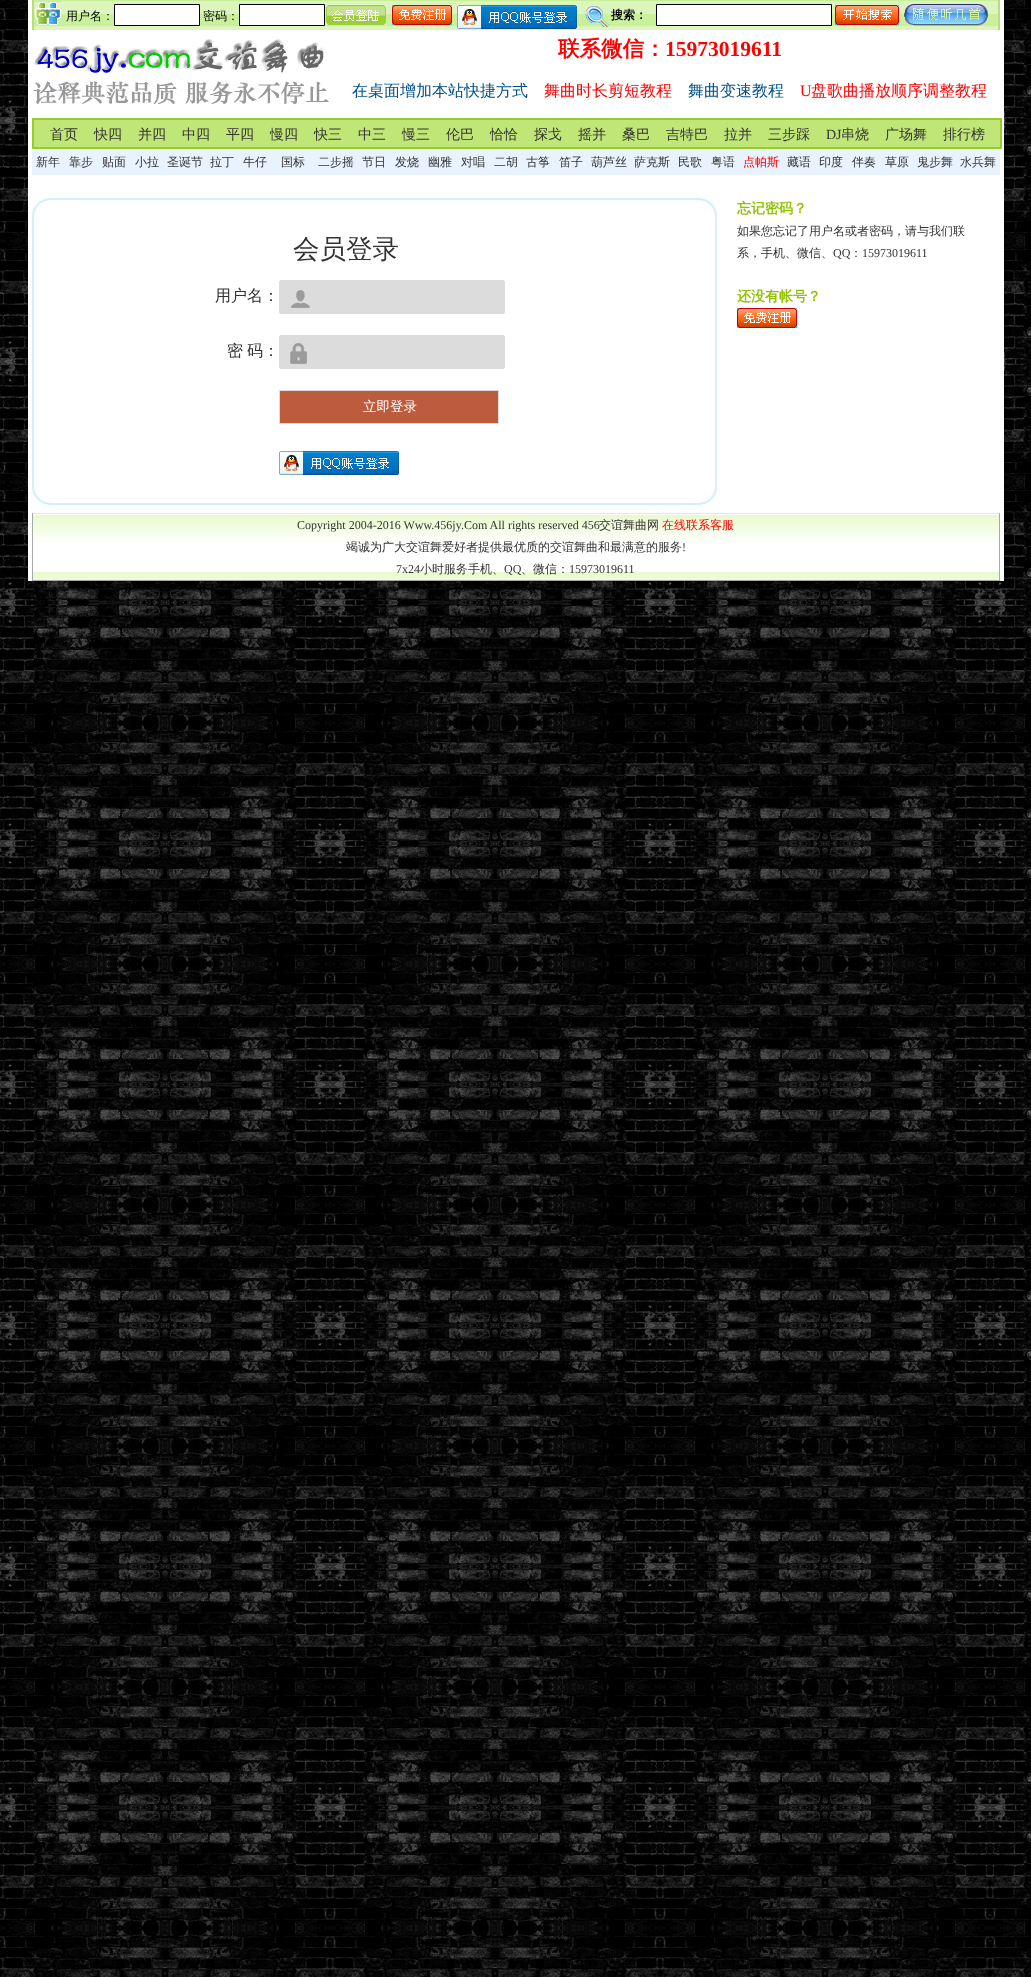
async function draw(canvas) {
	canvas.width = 1031;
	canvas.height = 1977;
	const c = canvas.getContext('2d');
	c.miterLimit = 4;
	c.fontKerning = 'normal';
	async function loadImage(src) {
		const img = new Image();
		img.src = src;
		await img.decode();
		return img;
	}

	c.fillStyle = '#fff';
	c.fillRect(0, 0, 1031, 1977);
	c.drawImage(await loadImage('img1.png'), 0, 0, 1031, 1977);
	c.fillRect(28, 0, 976, 30);
	c.fillStyle = '#badc7a';
	c.fillRect(32, 0, 2, 30);
	c.drawImage(await loadImage('img2.png'), 34, 0, 964, 30);
	c.drawImage(await loadImage('img3.png'), 34, 1, 28, 24);
	c.font = '500 12px WenQuanYi Zen Hei';
	c.fillStyle = '#000';
	c.fillText('用户名：', 66, 20);
	c.fillStyle = '#fff';
	c.beginPath();
	c.rect(114.5, 4.5, 85, 21);
	c.fill();
	c.strokeStyle = '#000';
	c.stroke();
	c.fillStyle = '#000';
	c.fillText('密码：', 203, 20);
	c.fillStyle = '#fff';
	c.beginPath();
	c.rect(239.5, 4.5, 85, 21);
	c.fill();
	c.stroke();
	c.drawImage(await loadImage('img4.png'), 326, 5, 60, 20);
	c.drawImage(await loadImage('img5.png'), 392, 5, 60, 20);
	c.drawImage(await loadImage('img6.png'), 457, 5, 120, 24);
	c.drawImage(await loadImage('img7.png'), 585, 6, 24, 21);
	c.font = 'bold 12px WenQuanYi Zen Hei';
	c.fillStyle = '#000';
	c.fillText('搜索：', 611, 19);
	c.fillStyle = '#fff';
	c.beginPath();
	c.rect(656.5, 4.5, 175, 21);
	c.fill();
	c.stroke();
	c.drawImage(await loadImage('img8.png'), 835, 5, 64, 20);
	c.drawImage(await loadImage('img9.png'), 904, 4, 84, 22);
	c.fillStyle = '#badc7a';
	c.fillRect(998, 0, 2, 30);
	c.fillStyle = '#fff';
	c.fillRect(28, 30, 976, 483);
	c.drawImage(await loadImage('img10.png'), 33, 39, 296, 66);
	c.font = 'bold 21.5px WenQuanYi Zen Hei';
	c.fillStyle = '#f00';
	c.fillText('联系微信：', 558, 56);
	c.font = 'bold 21.5px Liberation Serif';
	c.fillText('15973019611', 665, 56);
	c.font = '500 16px WenQuanYi Zen Hei';
	c.fillStyle = '#015087';
	c.fillText('在桌面增加本站快捷方式', 352, 96);
	c.fillStyle = '#f00';
	c.fillText('舞曲时长剪短教程', 544, 96);
	c.fillStyle = '#015087';
	c.fillText('舞曲变速教程', 688, 96);
	c.font = '16px Liberation Serif';
	c.fillStyle = '#f00';
	c.fillText('U', 800, 96);
	c.font = '500 16px WenQuanYi Zen Hei';
	c.fillText('盘歌曲播放顺序调整教程', 811, 96);
	c.fillStyle = '#c0e677';
	c.beginPath();
	c.rect(33, 119, 968, 29);
	c.fill();
	c.strokeStyle = '#95cd2c';
	c.lineWidth = 2;
	c.stroke();
	c.font = '500 14px WenQuanYi Zen Hei';
	c.fillStyle = '#333';
	for (const [text, x, y] of [
		['首页', 50, 139],
		['快四', 94, 139],
		['并四', 138, 139],
		['中四', 182, 139],
		['平四', 226, 139],
		['慢四', 270, 139],
		['快三', 314, 139],
		['中三', 358, 139],
		['慢三', 402, 139],
		['伦巴', 446, 139],
		['恰恰', 490, 139],
		['探戈', 534, 139],
		['摇并', 578, 139],
		['桑巴', 622, 139],
		['吉特巴', 666, 139],
		['拉并', 724, 139],
		['三步踩', 768, 139],
	]) {
		c.fillText(text, x, y);
	}
	c.font = '14px Liberation Serif';
	c.fillText('DJ', 826, 139);
	c.font = '500 14px WenQuanYi Zen Hei';
	for (const [text, x, y] of [
		['串烧', 841, 139],
		['广场舞', 885, 139],
		['排行榜', 943, 139],
	]) {
		c.fillText(text, x, y);
	}
	c.fillStyle = '#e9f3ff';
	c.fillRect(32, 150, 968, 25);
	c.font = '500 12px WenQuanYi Zen Hei';
	c.fillStyle = '#333';
	for (const [text, x, y] of [
		['新年', 36, 166],
		['靠步', 69, 166],
		['贴面', 102, 166],
		['小拉', 135, 166],
		['圣诞节', 167, 166],
		['拉丁', 210, 166],
		['牛仔', 243, 166],
		['国标', 281, 166],
		['二步摇', 318, 166],
		['节日', 362, 166],
		['发烧', 395, 166],
		['幽雅', 428, 166],
		['对唱', 461, 166],
		['二胡', 494, 166],
		['古筝', 526, 166],
		['笛子', 559, 166],
		['葫芦丝', 591, 166],
		['萨克斯', 634, 166],
		['民歌', 678, 166],
		['粤语', 711, 166],
	]) {
		c.fillText(text, x, y);
	}
	c.fillStyle = '#f00';
	c.fillText('点帕斯', 743, 166);
	c.fillStyle = '#333';
	for (const [text, x, y] of [
		['藏语', 787, 166],
		['印度', 819, 166],
		['伴奏', 852, 166],
		['草原', 885, 166],
		['鬼步舞', 917, 166],
		['水兵舞', 960, 166],
	]) {
		c.fillText(text, x, y);
	}
	c.drawImage(await loadImage('img11.png'), 32, 198, 685, 16);
	c.drawImage(await loadImage('img12.png'), 32, 214, 685, 275);
	c.font = '500 26.5px WenQuanYi Zen Hei';
	c.fillText('会员登录', 293, 258);
	c.font = '500 16px WenQuanYi Zen Hei';
	c.fillText('用户名：', 215, 301);
	c.fillStyle = '#dcdcdc';
	c.beginPath();
	c.roundRect(279, 280, 226, 34, 3);
	c.fill();
	c.drawImage(await loadImage('img13.png'), 291, 290, 19, 18);
	c.beginPath();
	c.roundRect(279.5, 280.5, 225, 33, 2.5);
	c.strokeStyle = '#dcdcdc';
	c.lineWidth = 1;
	c.stroke();
	c.fillStyle = '#333';
	c.fillText('密', 227, 356);
	c.fillText('码：', 247, 356);
	c.fillStyle = '#dcdcdc';
	c.beginPath();
	c.roundRect(279, 335, 226, 34, 3);
	c.fill();
	c.drawImage(await loadImage('img14.png'), 290, 343, 17, 21);
	c.beginPath();
	c.roundRect(279.5, 335.5, 225, 33, 2.5);
	c.stroke();
	c.fillStyle = '#bd5c3c';
	c.beginPath();
	c.rect(279.5, 390.5, 219, 33);
	c.fill();
	c.stroke();
	c.font = '500 13.5px WenQuanYi Zen Hei';
	c.fillStyle = '#fff';
	c.fillText('立即登录', 363, 411);
	c.drawImage(await loadImage('img6.png'), 279, 451, 120, 24);
	c.drawImage(await loadImage('img15.png'), 32, 489, 685, 16);
	c.font = 'bold 14px WenQuanYi Zen Hei';
	c.fillStyle = '#91c202';
	c.fillText('忘记密码？', 737, 213);
	c.font = '500 12px WenQuanYi Zen Hei';
	c.fillStyle = '#333';
	c.fillText('如果您忘记了用户名或者密码，请与我们联', 737, 235);
	c.fillText('系，手机、微信、', 737, 257);
	c.font = '12px Liberation Serif';
	c.fillText('QQ', 833, 257);
	c.font = '500 12px WenQuanYi Zen Hei';
	c.fillText('：', 850, 257);
	c.font = '12px Liberation Serif';
	c.fillText('15973019611', 862, 257);
	c.font = 'bold 14px WenQuanYi Zen Hei';
	c.fillStyle = '#91c202';
	c.fillText('还没有帐号？', 737, 301);
	c.drawImage(await loadImage('img5.png'), 737, 308, 60, 20);
	c.fillStyle = '#fff';
	c.fillRect(1000, 509, 4, 72);
	c.fillRect(28, 509, 4, 72);
	c.drawImage(await loadImage('img16.png'), 33, 514, 966, 66);
	for (const [x, y, w, h, color] of [
		[32, 513, 968, 1, '#e6e6e6'],
		[999, 513, 1, 68, '#a8a8a8'],
		[32, 580, 968, 1, '#a8a8a8'],
		[32, 513, 1, 68, '#a8a8a8'],
	]) {
		c.fillStyle = color;
		c.fillRect(x, y, w, h);
	}
	c.font = '12px Liberation Serif';
	c.fillStyle = '#333';
	c.fillText('Copyright 2004-2016 Www.456jy.Com All rights reserved 456', 297, 529);
	c.font = '500 12px WenQuanYi Zen Hei';
	c.fillText('交谊舞曲网', 599, 529);
	c.fillStyle = '#f00';
	c.fillText('在线联系客服', 662, 529);
	c.fillStyle = '#333';
	c.fillText('竭诚为广大交谊舞爱好者提供最优质的交谊舞曲和最满意的服务', 346, 551);
	c.font = '12px Liberation Serif';
	c.fillText('!', 682, 551);
	c.fillText('7x24', 396, 573);
	c.font = '500 12px WenQuanYi Zen Hei';
	c.fillText('小时服务手机、', 420, 573);
	c.font = '12px Liberation Serif';
	c.fillText('QQ', 504, 573);
	c.font = '500 12px WenQuanYi Zen Hei';
	c.fillText('、微信：', 521, 573);
	c.font = '12px Liberation Serif';
	c.fillText('15973019611', 569, 573);
}

draw(document.querySelector('canvas'));
